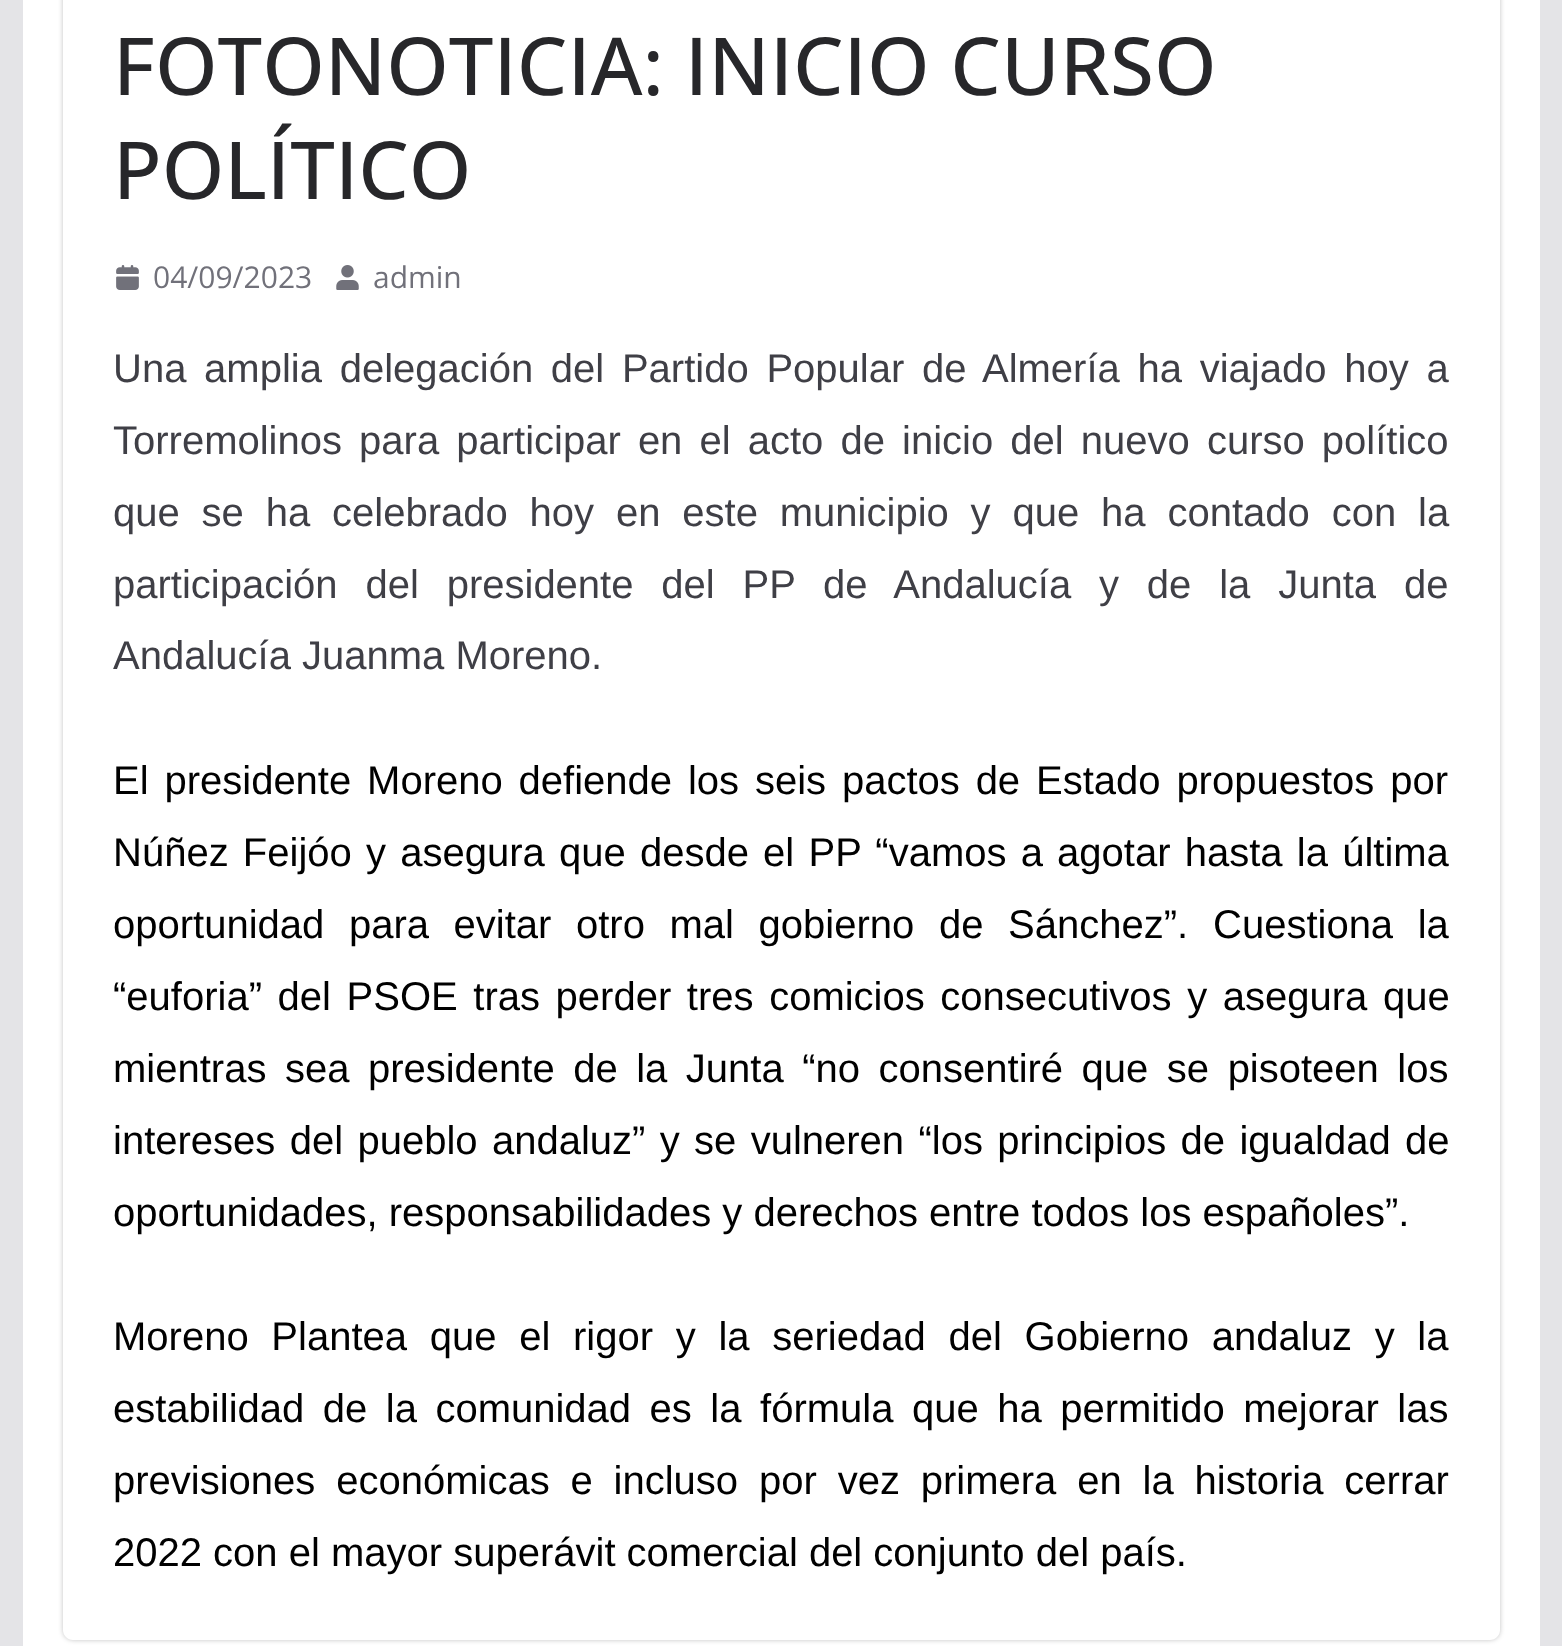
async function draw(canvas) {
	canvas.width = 1562;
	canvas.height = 1646;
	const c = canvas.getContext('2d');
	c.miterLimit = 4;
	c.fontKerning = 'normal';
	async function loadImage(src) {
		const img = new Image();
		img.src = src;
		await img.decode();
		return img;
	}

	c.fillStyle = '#e4e4e7';
	c.fillRect(0, 0, 1562, 1646);
	c.fillStyle = '#fff';
	c.fillRect(23, 0, 1517, 1646);
	c.save();
	c.beginPath();
	c.moveTo(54, 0);
	c.lineTo(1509, 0);
	c.lineTo(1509, 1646);
	c.lineTo(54, 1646);
	c.closePath();
	c.moveTo(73, -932);
	c.lineTo(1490, -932);
	c.bezierCurveTo(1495.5, -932, 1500, -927.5, 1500, -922);
	c.lineTo(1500, 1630);
	c.bezierCurveTo(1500, 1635.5, 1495.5, 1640, 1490, 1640);
	c.lineTo(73, 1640);
	c.bezierCurveTo(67.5, 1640, 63, 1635.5, 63, 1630);
	c.lineTo(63, -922);
	c.bezierCurveTo(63, -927.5, 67.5, -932, 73, -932);
	c.closePath();
	c.clip('evenodd');
	c.fillStyle = '#0000003d';
	c.filter = 'blur(2.5px)';
	c.beginPath();
	c.roundRect(63, -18, 1437, 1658, 10);
	c.fill();
	c.filter = 'none';
	c.restore();
	c.font = '500 80px Open Sans';
	c.fillStyle = '#27272a';
	c.fillText('FOTONOTICIA: INICIO CURSO', 113, 95);
	c.fillText('POLÍTICO', 113, 199);
	c.drawImage(await loadImage('img1.png'), 116, 265, 23, 25);
	c.font = '30px Open Sans';
	c.fillStyle = '#71717a';
	c.fillText('04/09/2023', 153, 288);
	c.drawImage(await loadImage('img2.png'), 336, 265, 23, 25);
	c.fillText('admin', 373, 288);
	c.wordSpacing = '6.6px';
	c.font = '40px Liberation Sans';
	c.fillStyle = '#3f3f46';
	c.fillText('Una amplia delegación del Partido Popular de Almería ha viajado hoy a', 113, 382);
	c.wordSpacing = '6px';
	c.fillText('Torremolinos para participar en el acto de inicio del nuevo curso político', 113, 454);
	c.wordSpacing = '10.75px';
	c.fillText('que se ha celebrado hoy en este municipio y que ha contado con la', 113, 526);
	c.wordSpacing = '16.75px';
	c.fillText('participación del presidente del PP de Andalucía y de la Junta de', 113, 598);
	c.wordSpacing = '0px';
	c.fillText('Andalucía Juanma Moreno.', 113, 669);
	c.wordSpacing = '4.75px';
	c.fillStyle = '#000';
	c.fillText('El presidente Moreno defiende los seis pactos de Estado propuestos por', 113, 794);
	c.wordSpacing = '3.1px';
	c.fillText('Núñez Feijóo y asegura que desde el PP “vamos a agotar hasta la última', 113, 866);
	c.wordSpacing = '13.5px';
	c.fillText('oportunidad para evitar otro mal gobierno de Sánchez”.', 113, 938);
	c.fillText('Cuestiona la', 1213, 938);
	c.wordSpacing = '4.5px';
	c.fillText('“euforia” del PSOE tras perder tres comicios consecutivos y asegura que', 113, 1010);
	c.wordSpacing = '7.4px';
	c.fillText('mientras sea presidente de la Junta “no consentiré que se pisoteen los', 113, 1082);
	c.wordSpacing = '3.25px';
	c.fillText('intereses del pueblo andaluz” y se vulneren “los principios de igualdad de', 113, 1154);
	c.wordSpacing = '0px';
	c.fillText('oportunidades, responsabilidades y derechos entre todos los españoles”.', 113, 1226);
	c.wordSpacing = '11.6px';
	c.fillText('Moreno Plantea que el rigor y la seriedad del Gobierno andaluz y la', 113, 1350);
	c.wordSpacing = '7.4px';
	c.fillText('estabilidad de la comunidad es la fórmula que ha permitido mejorar las', 113, 1422);
	c.wordSpacing = '9.75px';
	c.fillText('previsiones económicas e incluso por vez primera en la historia cerrar', 113, 1494);
	c.wordSpacing = '0px';
	c.fillText('2022 con el mayor superávit comercial del conjunto del país.', 113, 1566);
}

draw(document.querySelector('canvas'));
